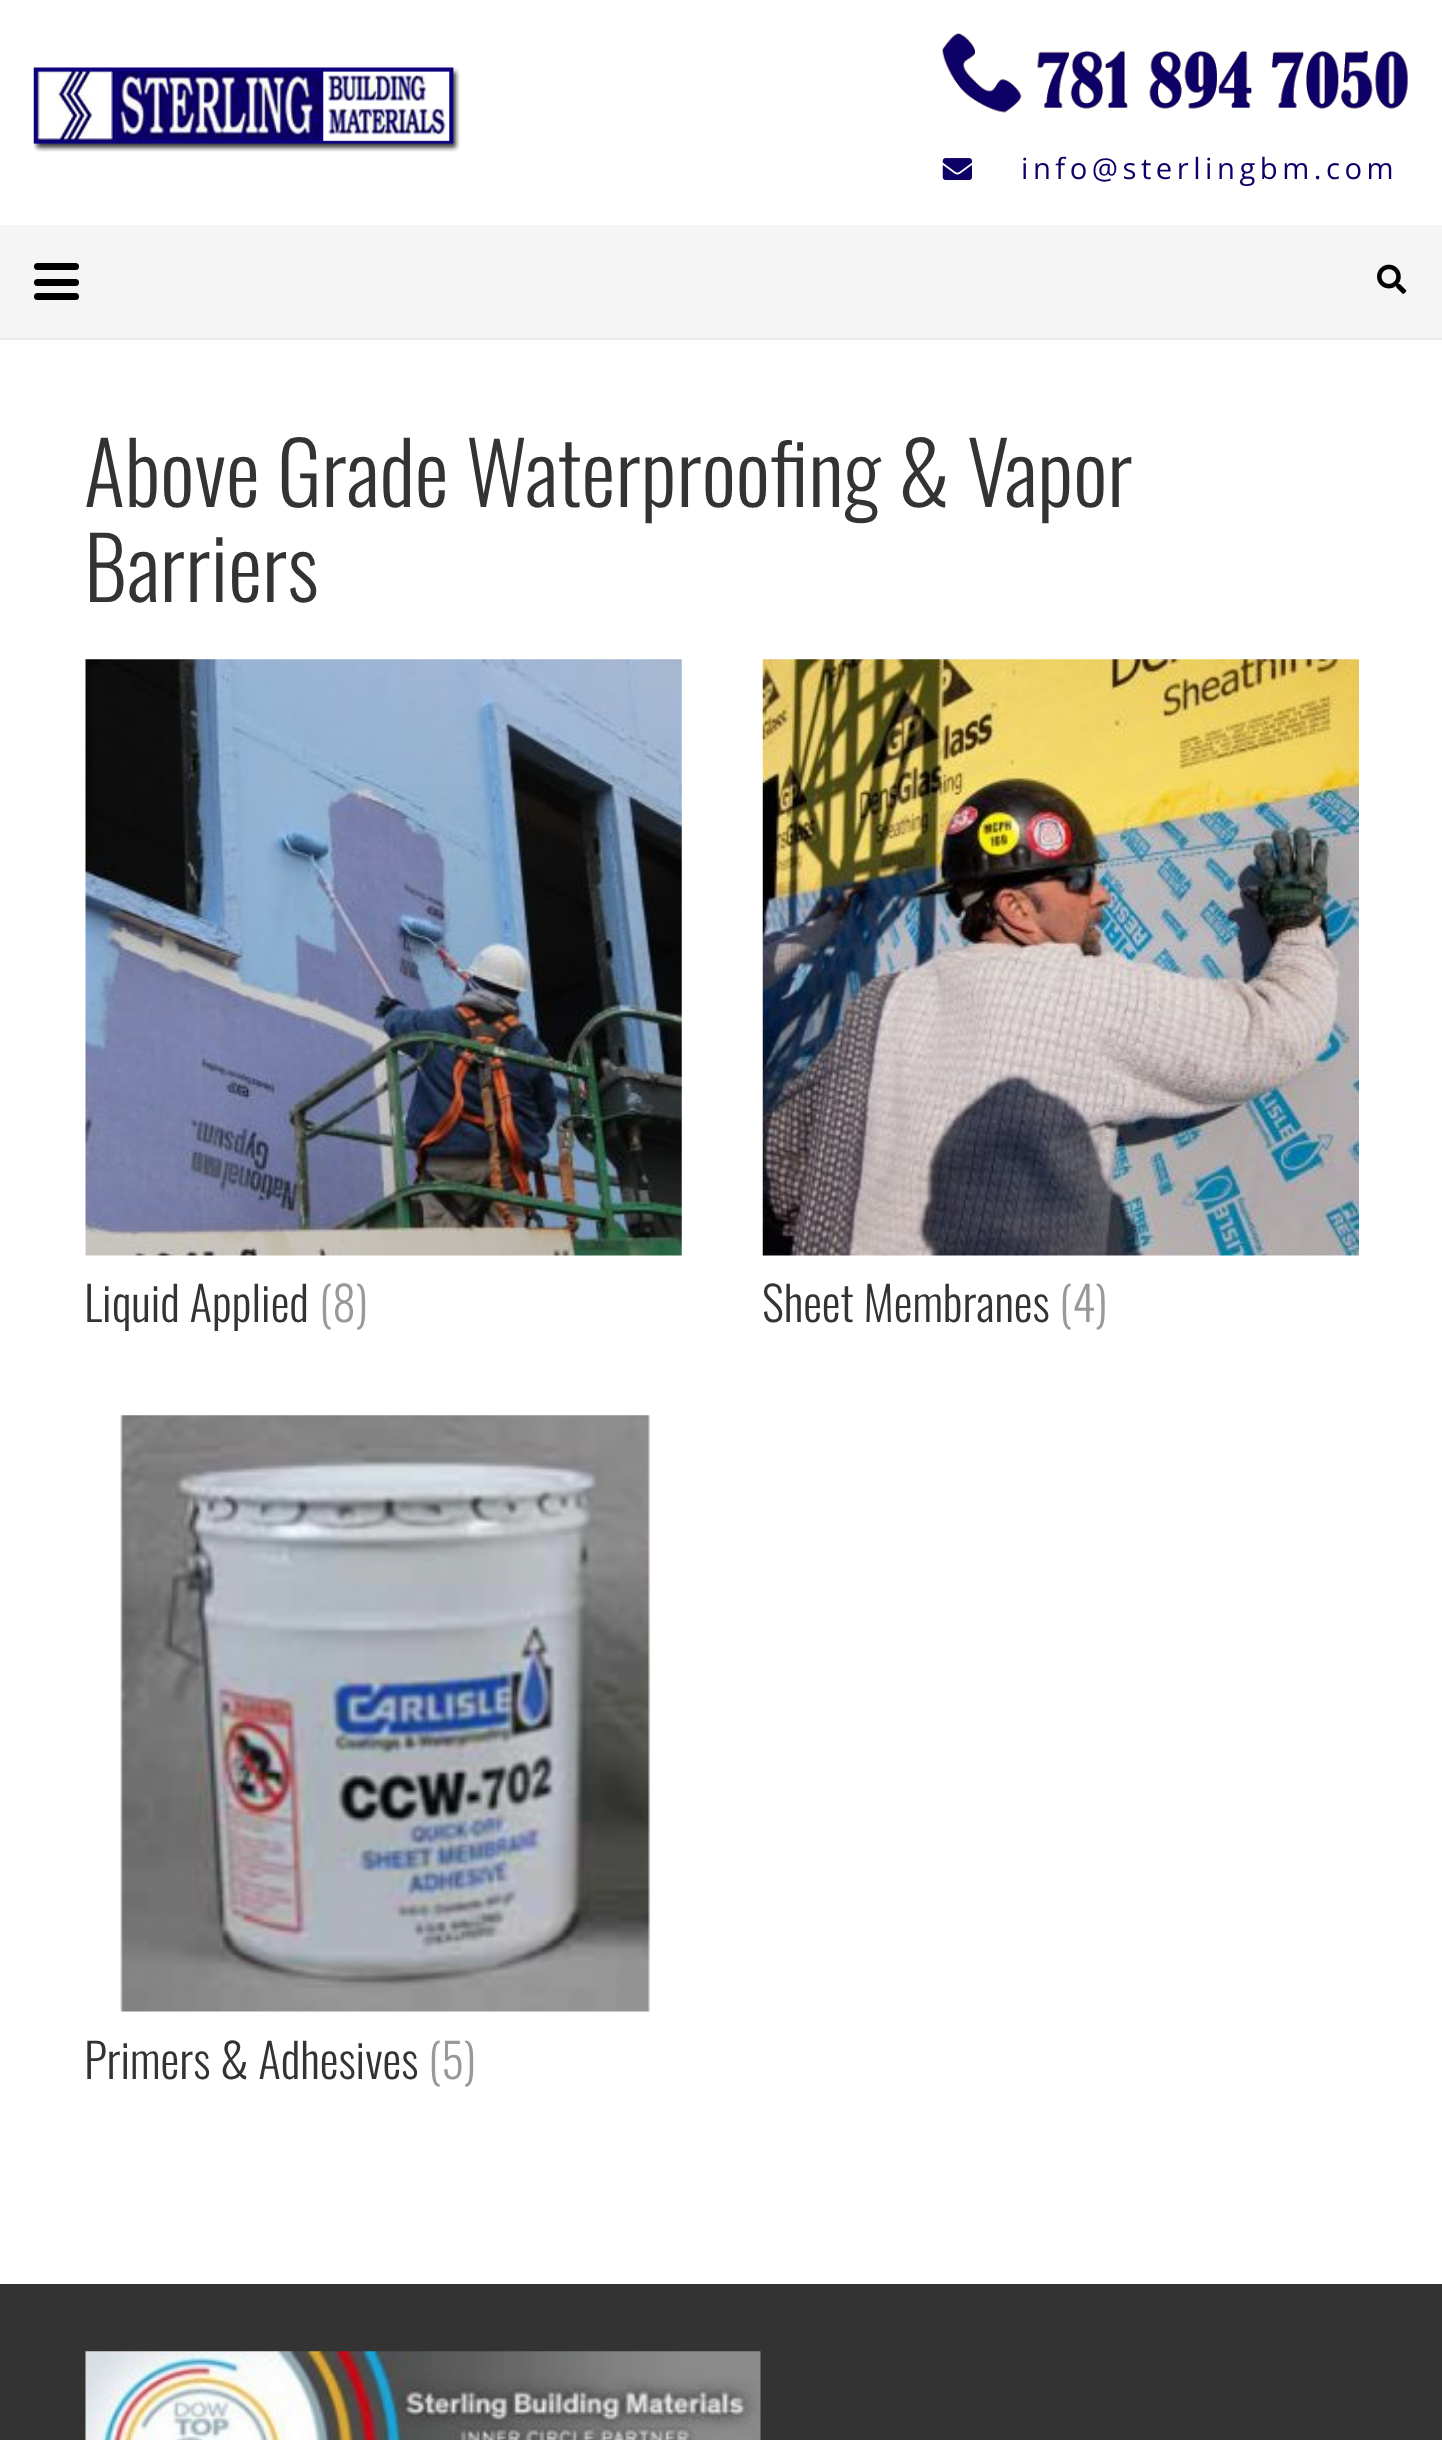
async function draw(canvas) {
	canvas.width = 1442;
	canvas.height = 2440;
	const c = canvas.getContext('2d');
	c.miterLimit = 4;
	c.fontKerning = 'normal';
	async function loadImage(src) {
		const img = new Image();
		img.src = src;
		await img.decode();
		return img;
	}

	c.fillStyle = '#fff';
	c.fillRect(0, 0, 1442, 2440);
	c.drawImage(await loadImage('img1.png'), 33, 67, 427, 85);
	c.drawImage(await loadImage('img2.png'), 942, 33, 466, 80);
	c.drawImage(await loadImage('img3.png'), 942, 158, 30, 22);
	c.letterSpacing = '4.5px';
	c.font = '29.25px Open Sans';
	c.fillStyle = '#0d0067';
	c.fillText('info@sterlingbm.com', 1021, 179);
	c.fillStyle = '#ebebeb';
	c.fillRect(0, 338, 1442, 2);
	c.fillStyle = '#f5f5f5';
	c.fillRect(0, 225, 1442, 113);
	c.fillStyle = '#000';
	c.beginPath();
	c.roundRect(34, 279, 45, 7, 3.5);
	c.fill();
	c.beginPath();
	c.roundRect(34, 263, 45, 7, 3.5);
	c.fill();
	c.beginPath();
	c.roundRect(34, 293, 45, 7, 3.5);
	c.fill();
	c.drawImage(await loadImage('img4.png'), 1377, 264, 30, 30);
	c.letterSpacing = '0px';
	c.font = '300 85.5px Oswald';
	c.fillStyle = '#333';
	c.fillText('Above Grade Waterproofing & Vapor', 84, 507);
	c.fillText('Barriers', 84, 602);
	c.drawImage(await loadImage('img5.png'), 85, 659, 597, 597);
	c.font = '300 47.25px Oswald';
	c.fillText('Liquid Applied', 84, 1322);
	c.fillStyle = '#999';
	c.fillText('(8)', 319, 1322);
	c.drawImage(await loadImage('img6.png'), 762, 659, 597, 597);
	c.fillStyle = '#333';
	c.fillText('Sheet Membranes', 762, 1322);
	c.fillStyle = '#999';
	c.fillText('(4)', 1059, 1322);
	c.drawImage(await loadImage('img7.png'), 120, 1415, 530, 597);
	c.fillStyle = '#333';
	c.fillText('Primers & Adhesives', 84, 2079);
	c.fillStyle = '#999';
	c.fillText('(5)', 428, 2079);
	c.fillStyle = '#333';
	c.fillRect(0, 2284, 1442, 156);
	c.drawImage(await loadImage('img8.png'), 85, 2351, 676, 89);
}

draw(document.querySelector('canvas'));
